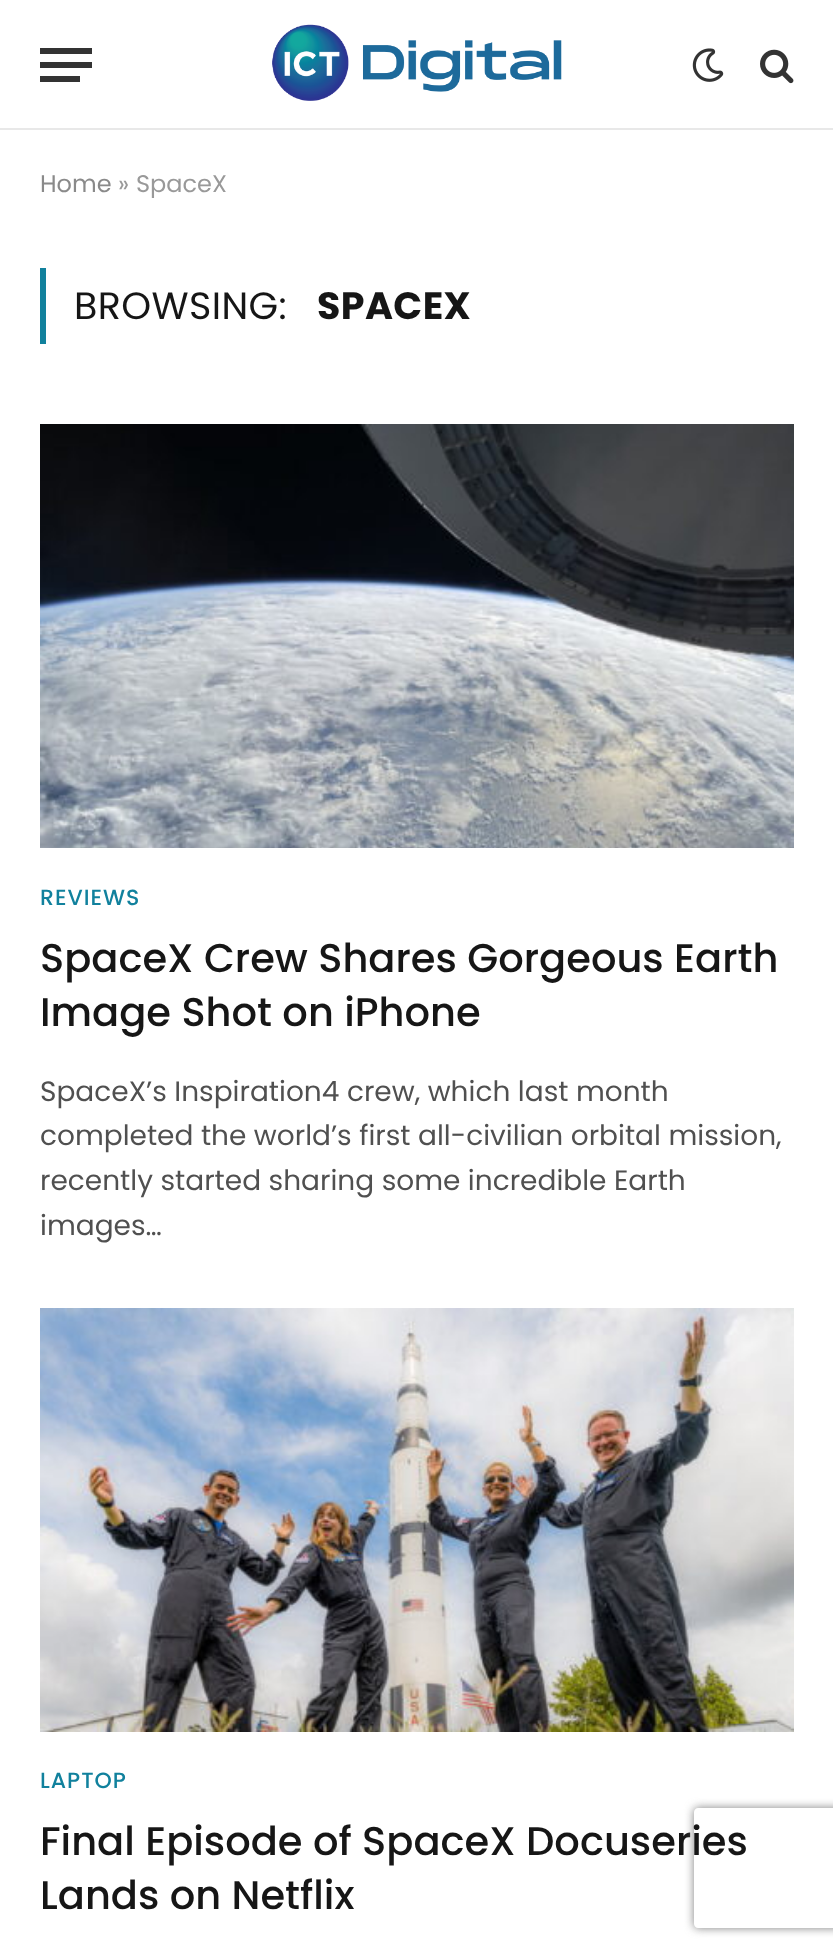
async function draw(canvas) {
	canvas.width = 833;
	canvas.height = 1956;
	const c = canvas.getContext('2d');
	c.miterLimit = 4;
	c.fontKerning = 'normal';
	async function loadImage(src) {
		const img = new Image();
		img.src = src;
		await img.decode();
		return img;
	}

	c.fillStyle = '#fff';
	c.fillRect(0, 0, 833, 1956);
	for (const [x, y, w, h, color] of [
		[0, 128, 833, 2, '#e8e8e8'],
		[40, 76, 40, 6, '#333'],
		[40, 48, 52, 6, '#333'],
		[40, 62, 52, 6, '#333'],
	]) {
		c.fillStyle = color;
		c.fillRect(x, y, w, h);
	}
	c.drawImage(await loadImage('img1.png'), 272, 24, 290, 77);
	c.drawImage(await loadImage('img2.png'), 692, 48, 32, 34);
	c.drawImage(await loadImage('img3.png'), 760, 49, 34, 35);
	c.font = '24px Poppins';
	c.fillStyle = '#8a8a8a';
	c.fillText('Home', 40, 192);
	c.fillStyle = '#999';
	c.fillText('»', 118, 192);
	c.save();
	c.beginPath();
	c.rect(0, 170, 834, 28);
	c.clip();
	c.fillText('SpaceX', 136, 192);
	c.restore();
	c.fillStyle = '#11819d';
	c.fillRect(40, 268, 6, 76);
	c.letterSpacing = '0.4px';
	c.font = '38px Poppins';
	c.fillStyle = '#161616';
	c.fillText('BROWSING:', 74, 319);
	c.font = 'bold 38px Poppins';
	c.fillText('SPACEX', 317, 319);
	c.drawImage(await loadImage('img4.png'), 40, 424, 754, 424);
	c.letterSpacing = '1px';
	c.font = '500 22px Poppins';
	c.fillStyle = '#11819d';
	c.fillText('REVIEWS', 40, 905);
	c.letterSpacing = '0px';
	c.font = '500 40px Poppins';
	c.fillStyle = '#161616';
	c.fillText('SpaceX Crew Shares Gorgeous Earth', 40, 972);
	c.fillText('Image Shot on iPhone', 40, 1026);
	c.font = '28px Poppins';
	c.fillStyle = '#505050';
	for (const [text, x, y] of [
		['SpaceX’s Inspiration4 crew, which last month', 40, 1101],
		['completed the world’s first all-civilian orbital mission,', 40, 1145],
		['recently started sharing some incredible Earth', 40, 1190],
		['images…', 40, 1235],
	]) {
		c.fillText(text, x, y);
	}
	c.drawImage(await loadImage('img5.png'), 40, 1308, 754, 424);
	c.letterSpacing = '1px';
	c.font = '500 22px Poppins';
	c.fillStyle = '#11819d';
	c.fillText('LAPTOP', 40, 1788);
	c.letterSpacing = '0px';
	c.font = '500 40px Poppins';
	c.fillStyle = '#161616';
	c.fillText('Final Episode of SpaceX Docuseries', 40, 1855);
	c.fillText('Lands on Netflix', 40, 1909);
	c.save();
	c.beginPath();
	c.moveTo(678, 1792);
	c.lineTo(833, 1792);
	c.lineTo(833, 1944);
	c.lineTo(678, 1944);
	c.closePath();
	c.moveTo(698, 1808);
	c.lineTo(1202, 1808);
	c.bezierCurveTo(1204, 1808, 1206, 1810, 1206, 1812);
	c.lineTo(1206, 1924);
	c.bezierCurveTo(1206, 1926, 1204, 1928, 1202, 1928);
	c.lineTo(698, 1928);
	c.bezierCurveTo(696, 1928, 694, 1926, 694, 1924);
	c.lineTo(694, 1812);
	c.bezierCurveTo(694, 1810, 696, 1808, 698, 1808);
	c.closePath();
	c.clip('evenodd');
	c.fillStyle = '#808080';
	c.filter = 'blur(5px)';
	c.beginPath();
	c.roundRect(694, 1808, 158, 120, 4);
	c.fill();
	c.filter = 'none';
	c.restore();
}

draw(document.querySelector('canvas'));
